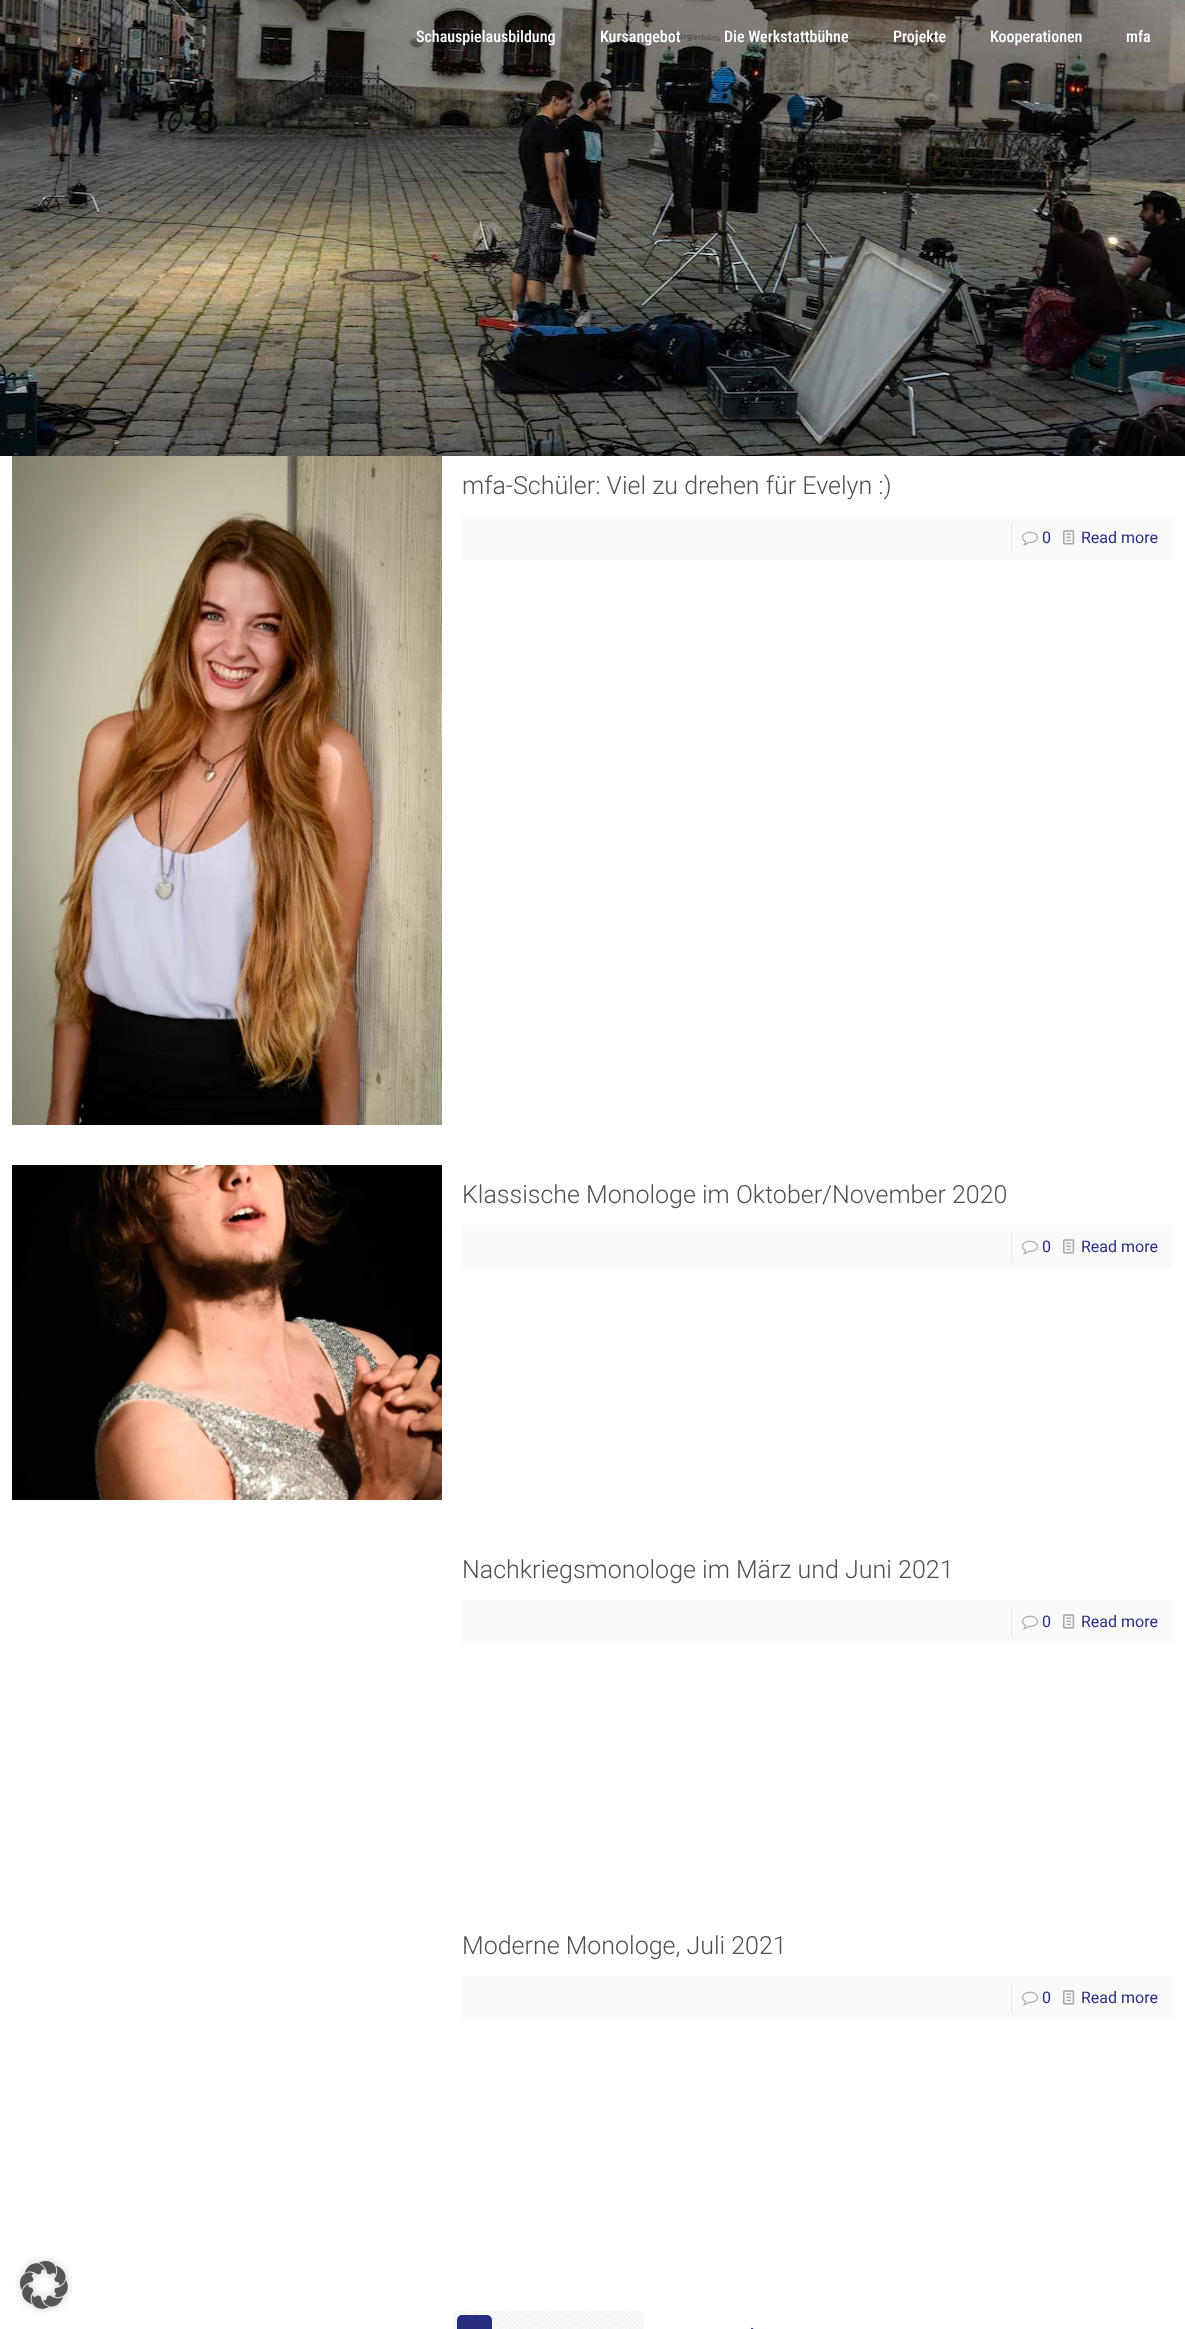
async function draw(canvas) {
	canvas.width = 1185;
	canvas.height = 2329;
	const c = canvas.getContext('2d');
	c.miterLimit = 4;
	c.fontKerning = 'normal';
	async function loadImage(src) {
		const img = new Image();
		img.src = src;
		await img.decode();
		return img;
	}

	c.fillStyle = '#fff';
	c.fillRect(0, 0, 1185, 2329);
	c.drawImage(await loadImage('img1.png'), 0, 0, 1185, 456);
	c.font = '500 16px Roboto Condensed';
	for (const [text, x, y] of [
		['Schauspielausbildung', 416, 42],
		['Kursangebot', 600, 42],
		['Die Werkstattbühne', 724, 42],
		['Projekte', 893, 42],
		['Kooperationen', 990, 42],
		['mfa', 1126, 42],
	]) {
		c.fillText(text, x, y);
	}
	c.drawImage(await loadImage('img2.png'), 12, 456, 430, 669);
	c.font = '300 25px Roboto';
	c.fillStyle = '#4f4f4f';
	c.fillText('mfa-Schüler: Viel zu drehen für Evelyn :)', 462, 494);
	c.fillStyle = '#fafafa';
	c.fillRect(462, 516, 711, 44);
	c.fillStyle = '#e6e6e6';
	c.fillRect(1011, 523, 1, 30);
	c.drawImage(await loadImage('img3.png'), 1022, 531, 16, 15);
	c.font = '16px Roboto';
	c.fillStyle = '#262d80';
	c.fillText('0', 1042, 543);
	c.drawImage(await loadImage('img4.png'), 1063, 530, 12, 15);
	c.fillText('Read more', 1081, 543);
	c.drawImage(await loadImage('img5.png'), 12, 1165, 430, 335);
	c.font = '300 25px Roboto';
	c.fillStyle = '#4f4f4f';
	c.fillText('Klassische Monologe im Oktober/November 2020', 462, 1203);
	c.fillStyle = '#fafafa';
	c.fillRect(462, 1225, 711, 44);
	c.fillStyle = '#e6e6e6';
	c.fillRect(1011, 1232, 1, 30);
	c.drawImage(await loadImage('img3.png'), 1022, 1240, 16, 15);
	c.font = '16px Roboto';
	c.fillStyle = '#262d80';
	c.fillText('0', 1042, 1252);
	c.drawImage(await loadImage('img4.png'), 1063, 1239, 12, 15);
	c.fillText('Read more', 1081, 1252);
	c.font = '300 25px Roboto';
	c.fillStyle = '#4f4f4f';
	c.fillText('Nachkriegsmonologe im März und Juni 2021', 462, 1578);
	c.fillStyle = '#fafafa';
	c.fillRect(462, 1600, 711, 44);
	c.fillStyle = '#e6e6e6';
	c.fillRect(1011, 1607, 1, 30);
	c.drawImage(await loadImage('img3.png'), 1022, 1615, 16, 15);
	c.font = '16px Roboto';
	c.fillStyle = '#262d80';
	c.fillText('0', 1042, 1627);
	c.drawImage(await loadImage('img4.png'), 1063, 1614, 12, 15);
	c.fillText('Read more', 1081, 1627);
	c.font = '300 25px Roboto';
	c.fillStyle = '#4f4f4f';
	c.fillText('Moderne Monologe, Juli 2021', 462, 1954);
	c.fillStyle = '#fafafa';
	c.fillRect(462, 1976, 711, 44);
	c.fillStyle = '#e6e6e6';
	c.fillRect(1011, 1983, 1, 30);
	c.drawImage(await loadImage('img3.png'), 1022, 1991, 16, 15);
	c.font = '16px Roboto';
	c.fillStyle = '#262d80';
	c.fillText('0', 1042, 2003);
	c.drawImage(await loadImage('img4.png'), 1063, 1990, 12, 15);
	c.fillText('Read more', 1081, 2003);
	c.fillStyle = '#f8f8f8';
	c.beginPath();
	c.roundRect(453, 2311, 191, 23, 5);
	c.fill();
	c.drawImage(await loadImage('img6.png'), 453, 2311, 191, 18);
	c.fillStyle = '#262d80';
	c.beginPath();
	c.roundRect(457, 2315, 35, 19, 5);
	c.fill();
	c.drawImage(await loadImage('img7.png'), 751, 2327, 3, 2);
	c.drawImage(await loadImage('img8.png'), 15, 2256, 57, 57);
}

draw(document.querySelector('canvas'));
